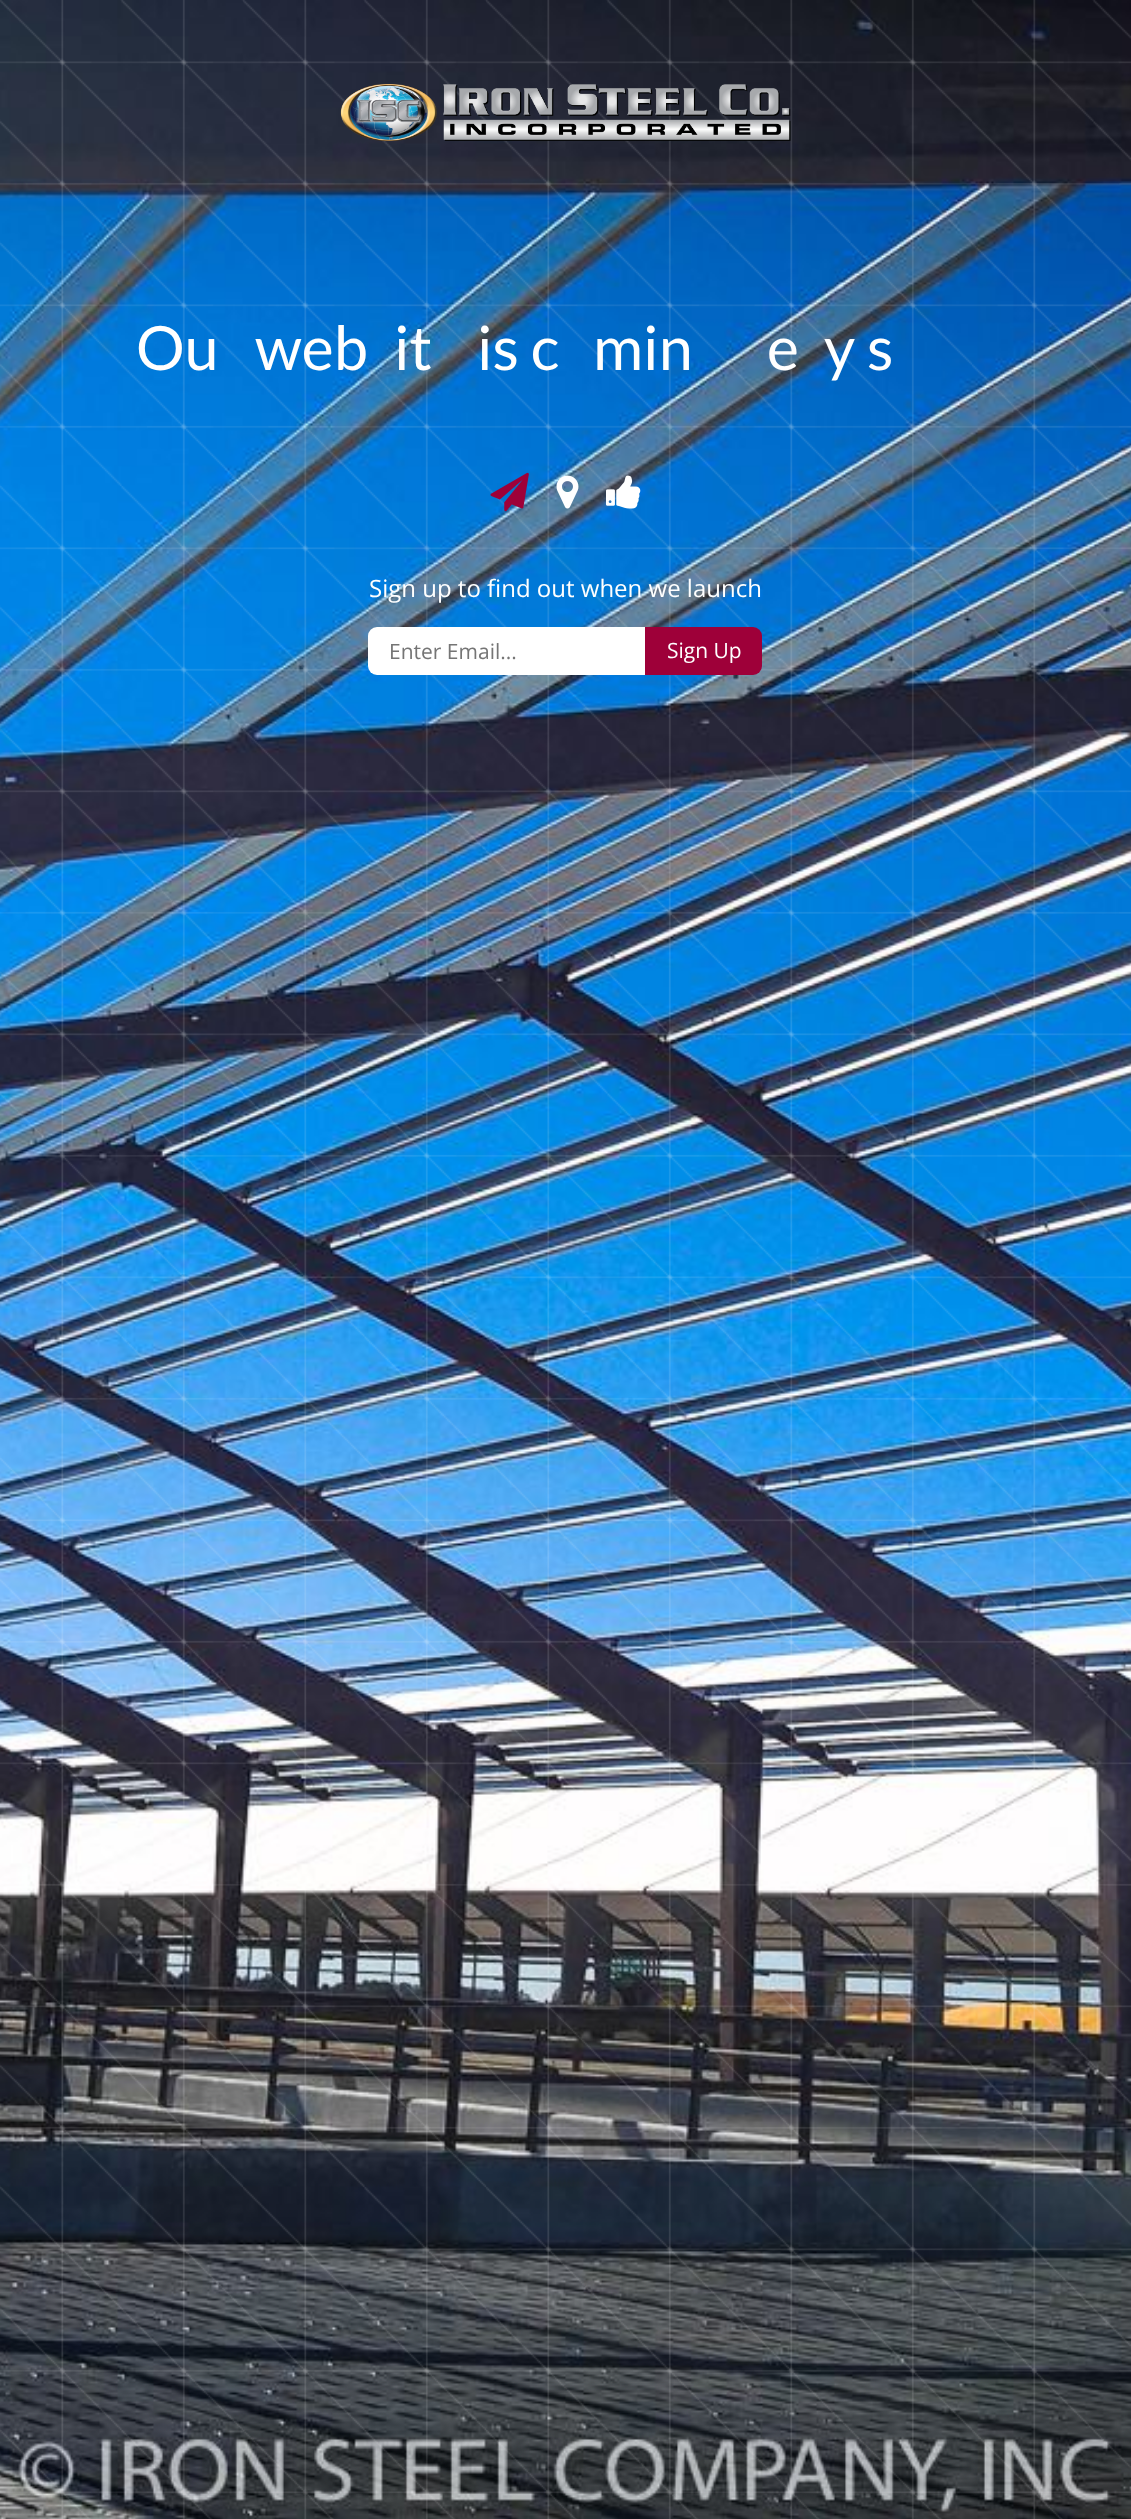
async function draw(canvas) {
	canvas.width = 1131;
	canvas.height = 2519;
	const c = canvas.getContext('2d');
	c.miterLimit = 4;
	c.fontKerning = 'normal';
	async function loadImage(src) {
		const img = new Image();
		img.src = src;
		await img.decode();
		return img;
	}

	c.fillStyle = '#fff';
	c.fillRect(0, 0, 1131, 2519);
	c.drawImage(await loadImage('img1.png'), 0, 0, 1131, 2519);
	c.drawImage(await loadImage('img2.png'), 0, 0, 1131, 2519);
	c.drawImage(await loadImage('img3.png'), 340, 84, 451, 57);
	c.font = '61px Lato';
	for (const [text, x, y] of [
		['Ou', 136, 370],
		['web', 255, 370],
		['it', 394, 370],
		['is c', 477, 370],
		['min', 593, 370],
		['e', 767, 370],
		['y s', 824, 370],
	]) {
		c.fillText(text, x, y);
	}
	c.drawImage(await loadImage('img4.png'), 490, 472, 39, 40);
	c.drawImage(await loadImage('img5.png'), 556, 475, 23, 34);
	c.drawImage(await loadImage('img6.png'), 606, 475, 35, 34);
	c.font = '24px Open Sans';
	c.fillText('Sign up to find out when we launch', 369, 597);
	c.beginPath();
	c.roundRect(368, 627, 277, 48, [9, 0, 0, 9]);
	c.fill();
	c.font = '21px Open Sans';
	c.fillStyle = '#757575';
	c.fillText('Enter Email...', 389, 659);
	c.fillStyle = '#9e0039';
	c.beginPath();
	c.roundRect(645, 627, 117, 48, [0, 9, 9, 0]);
	c.fill();
	c.fillStyle = '#fff';
	c.fillText('Sign Up', 667, 658);
}

draw(document.querySelector('canvas'));
